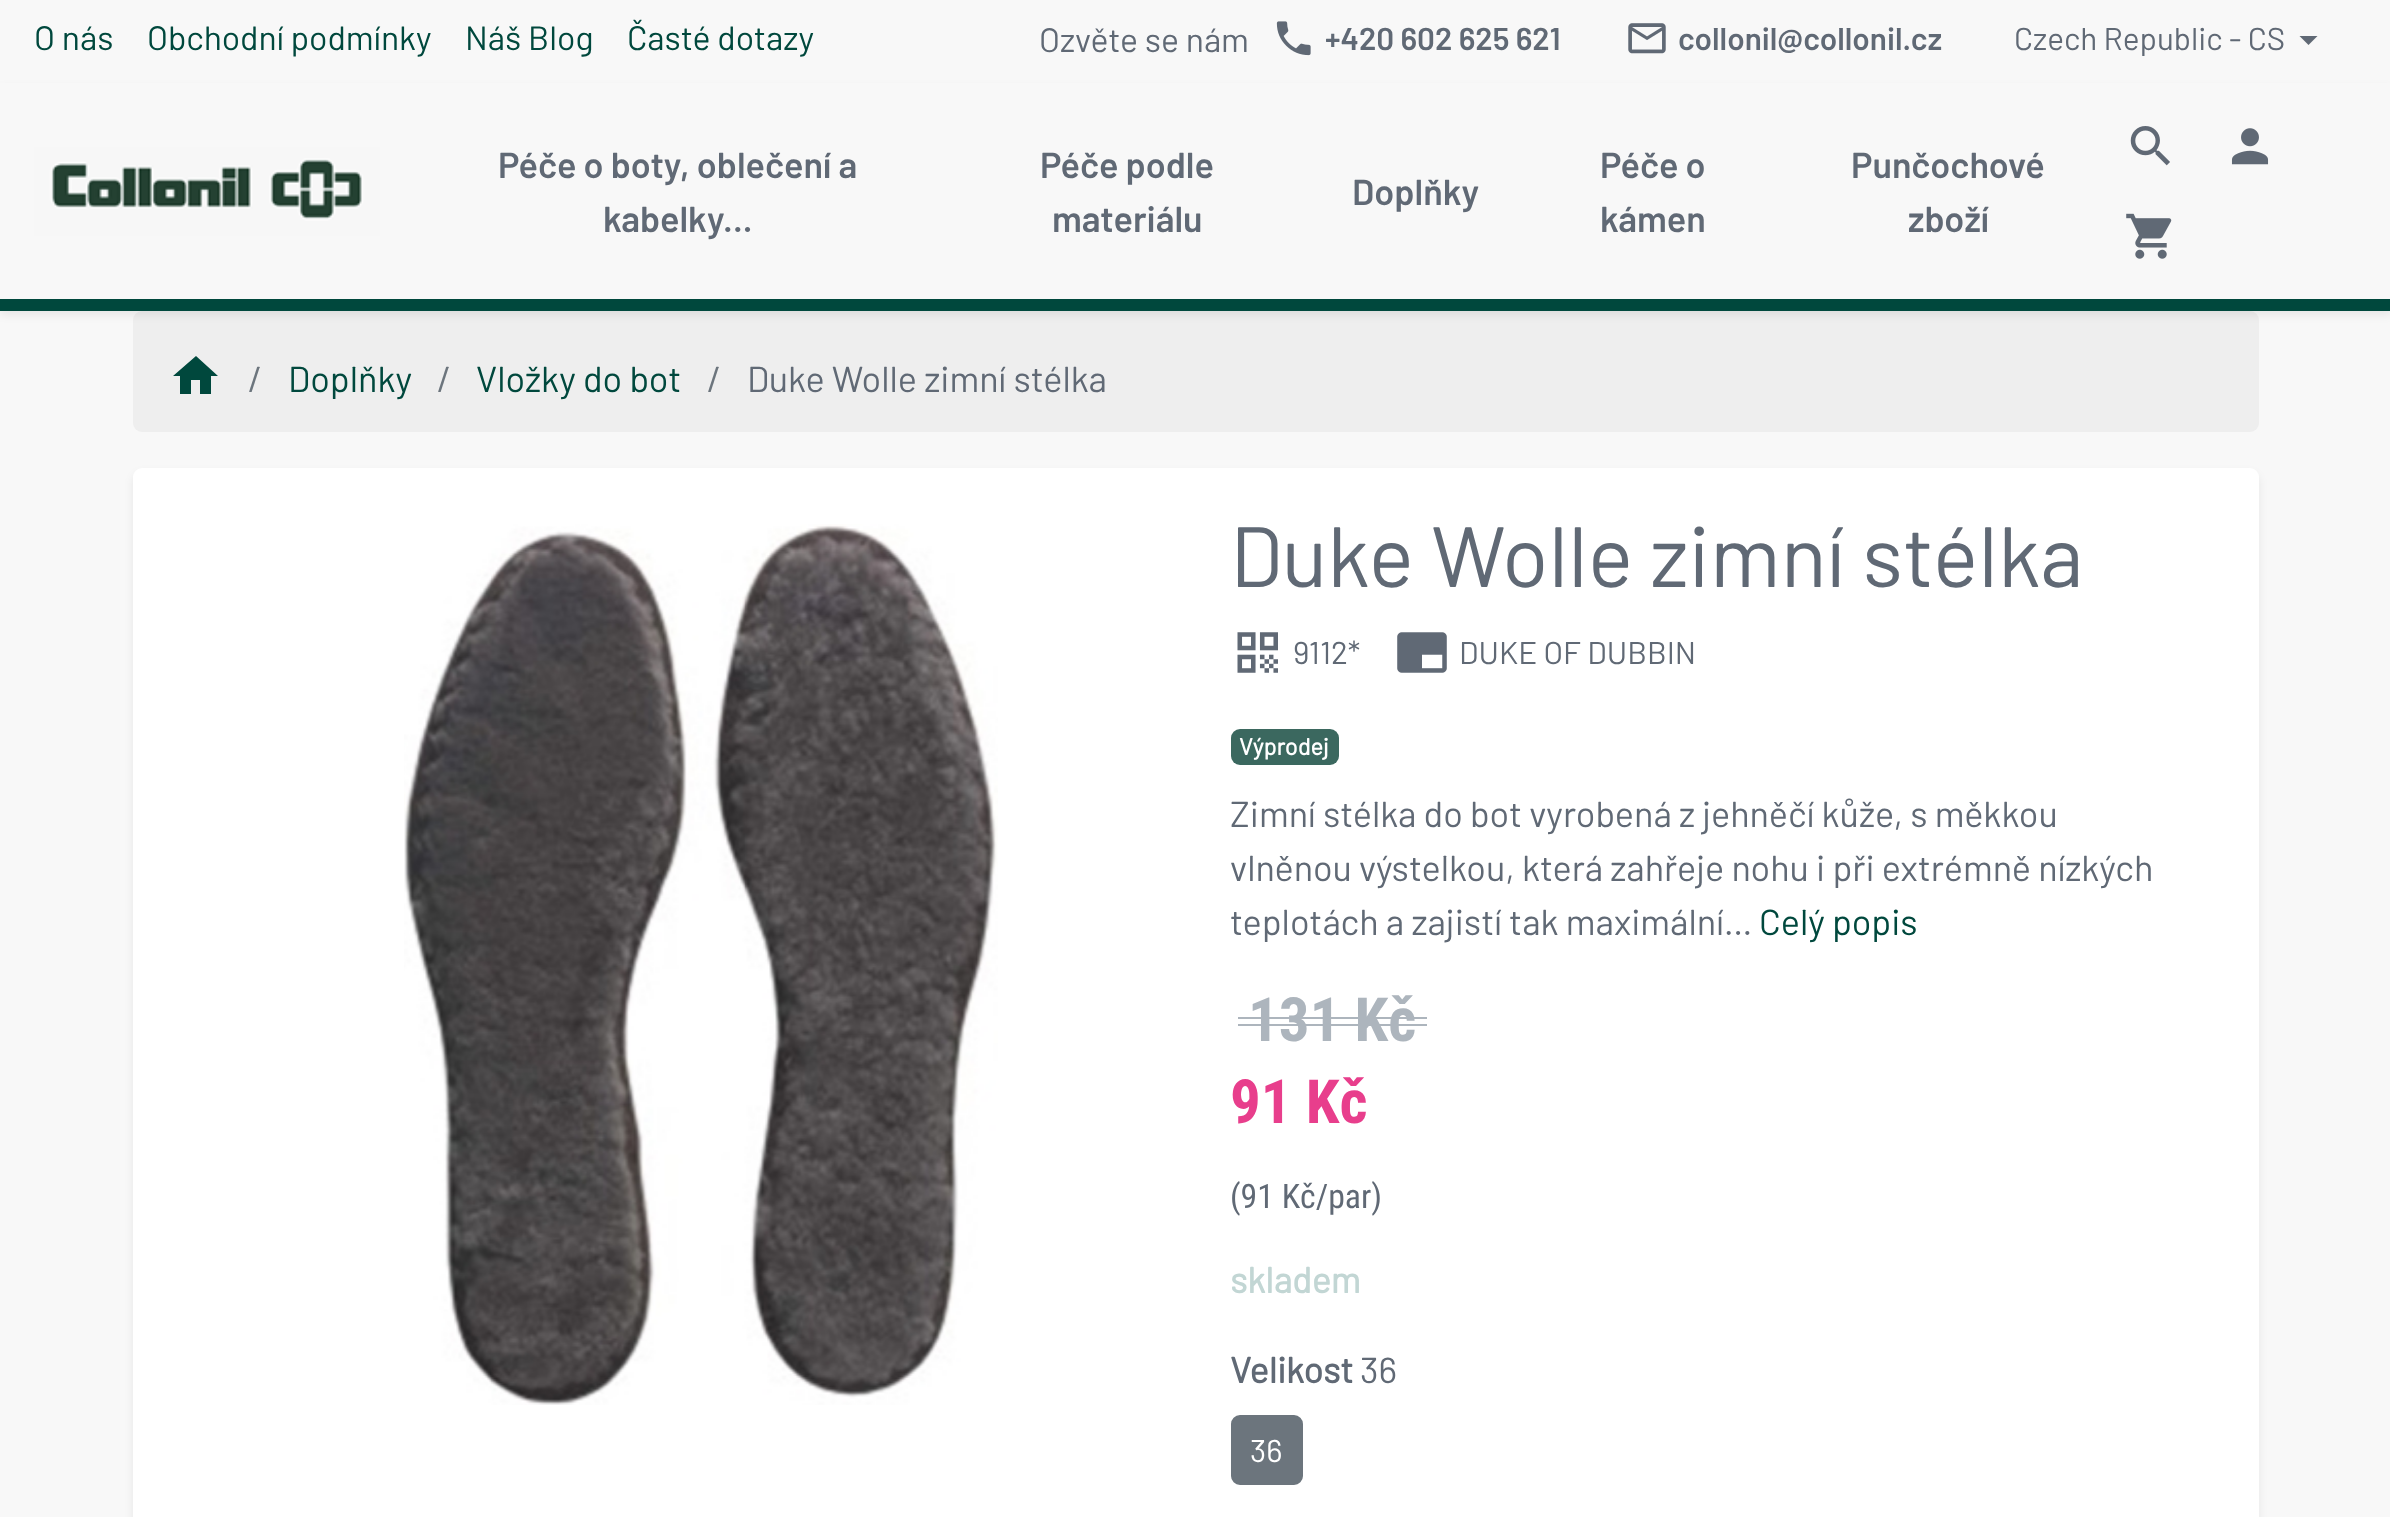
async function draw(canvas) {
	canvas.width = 2390;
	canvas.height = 1517;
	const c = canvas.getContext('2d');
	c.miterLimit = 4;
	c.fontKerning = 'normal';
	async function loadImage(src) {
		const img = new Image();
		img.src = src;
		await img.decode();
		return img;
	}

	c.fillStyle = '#f8f8f8';
	c.fillRect(0, 0, 2390, 1517);
	c.font = '33.75px Barlow';
	c.fillStyle = '#00483d';
	for (const [text, x, y] of [
		['O nás', 34, 50],
		['Obchodní podmínky', 147, 50],
		['Náš Blog', 465, 50],
		['Časté dotazy', 627, 50],
	]) {
		c.fillText(text, x, y);
	}
	c.fillStyle = '#606975';
	c.fillText('Ozvěte se nám', 1039, 52);
	c.drawImage(await loadImage('img1.png'), 1276, 21, 35, 35);
	c.font = '600 31.5px Barlow';
	c.fillText('+420 602 625 621', 1325, 50);
	c.drawImage(await loadImage('img2.png'), 1628, 23, 38, 31);
	c.fillText('collonil@collonil.cz', 1678, 50);
	c.font = '31.5px Barlow';
	c.fillText('Czech Republic - CS', 2014, 50);
	c.beginPath();
	c.moveTo(2299.5, 36);
	c.lineTo(2317.5, 36);
	c.lineTo(2308.5, 45);
	c.closePath();
	c.fill();
	c.fillStyle = '#eee';
	c.beginPath();
	c.roundRect(133, 311, 2126, 121, 9);
	c.fill();
	c.fillStyle = '#00000012';
	c.filter = 'blur(4.5px)';
	c.beginPath();
	c.rect(0, 88, 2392, 227);
	c.fill();
	c.filter = 'none';
	c.fillStyle = '#f8f8f8';
	c.fillRect(0, 83, 2390, 216);
	c.fillStyle = '#00483d';
	c.fillRect(0, 299, 2390, 12);
	c.drawImage(await loadImage('img3.png'), 34, 146, 346, 90);
	c.font = '600 36px Barlow';
	c.fillStyle = '#606975';
	for (const [text, x, y] of [
		['Péče o boty, oblečení a', 498, 178],
		['kabelky...', 603, 232],
		['Péče podle', 1040, 178],
		['materiálu', 1052, 232],
		['Doplňky', 1352, 205],
		['Péče o', 1600, 178],
		['kámen', 1600, 232],
		['Punčochové', 1851, 178],
		['zboží', 1908, 232],
	]) {
		c.fillText(text, x, y);
	}
	c.drawImage(await loadImage('img4.png'), 2130, 126, 40, 40);
	c.drawImage(await loadImage('img5.png'), 2231, 128, 38, 37);
	c.drawImage(await loadImage('img6.png'), 2126, 213, 46, 46);
	c.fillStyle = '#00483d';
	c.beginPath();
	c.moveTo(191, 394);
	c.lineTo(180, 394);
	c.lineTo(180, 376);
	c.lineTo(173, 376);
	c.lineTo(196, 356);
	c.lineTo(218, 376);
	c.lineTo(211, 376);
	c.lineTo(211, 394);
	c.lineTo(200, 394);
	c.lineTo(200, 380);
	c.lineTo(191, 380);
	c.closePath();
	c.fill();
	c.font = '36px Barlow';
	c.fillStyle = '#6c757d';
	c.fillText('/', 248, 392);
	c.fillStyle = '#00483d';
	c.fillText('Doplňky', 288, 392);
	c.fillStyle = '#6c757d';
	c.fillText('/', 437, 392);
	c.fillStyle = '#00483d';
	c.fillText('Vložky do bot', 476, 392);
	c.fillStyle = '#6c757d';
	c.fillText('/', 707, 392);
	c.fillStyle = '#606975';
	c.fillText('Duke Wolle zimní stélka', 747, 392);
	c.fillStyle = '#00000012';
	c.filter = 'blur(4.5px)';
	c.beginPath();
	c.roundRect(133, 473, 2126, 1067, 9);
	c.fill();
	c.filter = 'none';
	c.fillStyle = '#fff';
	c.beginPath();
	c.roundRect(133, 468, 2126, 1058, 9);
	c.fill();
	c.drawImage(await loadImage('img7.png'), 404, 524, 594, 881);
	c.font = '85.4px Barlow';
	c.fillStyle = '#606975';
	c.fillText('Duke Wolle zimní stélka', 1230, 587);
	c.drawImage(await loadImage('img8.png'), 1237, 632, 41, 41);
	c.font = '31.5px Barlow';
	c.fillText('9112*', 1293, 664);
	c.drawImage(await loadImage('img9.png'), 1397, 632, 50, 41);
	c.fillText('DUKE OF DUBBIN', 1459, 664);
	c.fillStyle = '#3b685f';
	c.beginPath();
	c.roundRect(1231, 729, 108, 36, 9);
	c.fill();
	c.font = 'bold 23.5px Barlow';
	c.fillStyle = '#fff';
	c.fillText('Výprodej', 1239, 755);
	c.font = '36px Barlow';
	c.fillStyle = '#606975';
	for (const [text, x, y] of [
		['Zimní stélka do bot vyrobená z jehněčí kůže, s měkkou', 1230, 827],
		['vlněnou výstelkou, která zahřeje nohu i při extrémně nízkých', 1230, 881],
		['teplotách a zajistí tak maximální…', 1230, 935],
	]) {
		c.fillText(text, x, y);
	}
	c.fillStyle = '#00483d';
	c.fillText('Celý popis', 1759, 935);
	c.font = 'bold 61px Roboto Condensed';
	c.fillStyle = '#adb5bd';
	c.fillText('131 Kč', 1248, 1041);
	c.fillRect(1238, 1017, 189, 2);
	c.fillRect(1238, 1024, 189, 2);
	c.fillStyle = '#e83e8c';
	c.fillText('91 Kč', 1230, 1123);
	c.font = '33.75px Roboto Condensed';
	c.fillStyle = '#606975';
	c.fillText('(91 Kč/par)', 1230, 1208);
	c.font = 'bold 36px Barlow';
	c.fillStyle = '#c2d6d4';
	c.fillText('skladem', 1230, 1293);
	c.fillStyle = '#606975';
	c.fillText('Velikost', 1230, 1383);
	c.font = '36px Barlow';
	c.fillText('36', 1360, 1383);
	c.fillStyle = '#6c757d';
	c.beginPath();
	c.roundRect(1232, 1416, 70, 68, 8);
	c.fill();
	c.strokeStyle = '#6c757d';
	c.lineWidth = 2;
	c.stroke();
	c.font = '31.5px Barlow';
	c.fillStyle = '#fff';
	c.fillText('36', 1250, 1462);
}

draw(document.querySelector('canvas'));
